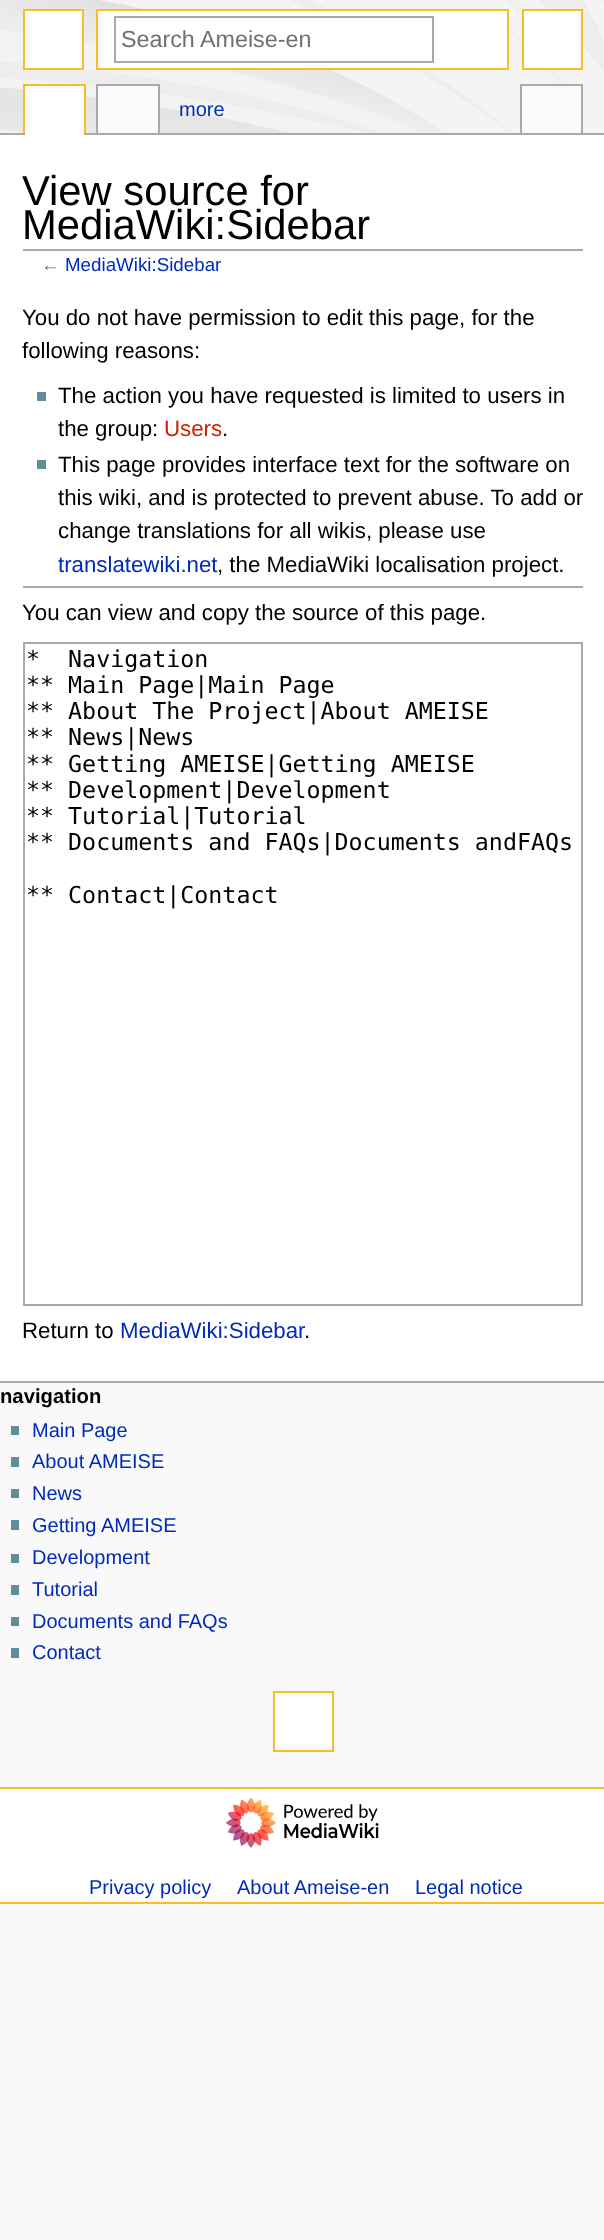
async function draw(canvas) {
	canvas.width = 604;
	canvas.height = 2240;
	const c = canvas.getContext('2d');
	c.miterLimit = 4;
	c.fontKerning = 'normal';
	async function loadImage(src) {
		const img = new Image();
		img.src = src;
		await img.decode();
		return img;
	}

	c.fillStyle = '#f9f9f9';
	c.fillRect(0, 0, 604, 2240);
	c.drawImage(await loadImage('img1.png'), 0, 0, 604, 133);
	c.fillStyle = '#fff';
	c.beginPath();
	c.rect(24, 10, 59, 59);
	c.fill();
	c.strokeStyle = '#fabd23';
	c.lineWidth = 2;
	c.stroke();
	c.beginPath();
	c.rect(523, 10, 59, 59);
	c.fill();
	c.stroke();
	c.beginPath();
	c.rect(97, 10, 411, 59);
	c.fill();
	c.stroke();
	c.strokeStyle = '#aaa';
	c.strokeRect(115, 17, 318, 45);
	c.font = '23.3px Liberation Sans';
	c.fillStyle = '#707070';
	c.fillText('Search Ameise-en', 121, 47);
	c.font = 'bold 20.25px Liberation Sans';
	c.fillStyle = '#000';
	c.fillText('navigation', 0, 1403);
	c.fillStyle = '#638c9c';
	c.fillRect(11, 1426, 8, 9);
	c.font = '20px Liberation Sans';
	c.fillStyle = '#002bb8';
	c.fillText('Main Page', 32, 1437);
	c.fillStyle = '#638c9c';
	c.fillRect(11, 1457, 8, 10);
	c.fillStyle = '#002bb8';
	c.fillText('About AMEISE', 32, 1468);
	c.fillStyle = '#638c9c';
	c.fillRect(11, 1489, 8, 9);
	c.fillStyle = '#002bb8';
	c.fillText('News', 32, 1500);
	c.fillStyle = '#638c9c';
	c.fillRect(11, 1520, 8, 10);
	c.fillStyle = '#002bb8';
	c.fillText('Getting AMEISE', 32, 1532);
	c.fillStyle = '#638c9c';
	c.fillRect(11, 1554, 8, 9);
	c.fillStyle = '#002bb8';
	c.fillText('Development', 32, 1564);
	c.fillStyle = '#638c9c';
	c.fillRect(11, 1585, 8, 10);
	c.fillStyle = '#002bb8';
	c.fillText('Tutorial', 32, 1596);
	c.fillStyle = '#638c9c';
	c.fillRect(11, 1617, 8, 9);
	c.fillStyle = '#002bb8';
	c.fillText('Documents and FAQs', 32, 1628);
	c.fillStyle = '#638c9c';
	c.fillRect(11, 1648, 8, 10);
	c.fillStyle = '#002bb8';
	c.fillText('Contact', 32, 1659);
	for (const [x, y, w, h, color] of [
		[23, 84, 63, 2, '#fabd23'],
		[84, 84, 2, 51, '#fabd23'],
		[23, 84, 2, 51, '#fabd23'],
		[96, 84, 63, 2, '#aaa'],
		[158, 84, 2, 51, '#aaa'],
		[96, 84, 2, 51, '#aaa'],
		[520, 84, 63, 2, '#aaa'],
		[581, 84, 2, 51, '#aaa'],
		[520, 84, 2, 51, '#aaa'],
		[0, 133, 604, 2, '#aaa'],
		[25, 86, 59, 49, '#fff'],
		[98, 86, 60, 47, '#fbfbfb'],
	]) {
		c.fillStyle = color;
		c.fillRect(x, y, w, h);
	}
	c.fillStyle = '#002bb8';
	c.fillText('more', 179, 116);
	c.fillStyle = '#fbfbfb';
	c.fillRect(522, 86, 59, 47);
	c.fillStyle = '#fff';
	c.beginPath();
	c.rect(274, 1692, 59, 59);
	c.fill();
	c.strokeStyle = '#fabd23';
	c.stroke();
	for (const [x, y, w, h, color] of [
		[0, 135, 604, 1246, '#fff'],
		[0, 1381, 604, 2, '#aaa'],
		[23, 249, 560, 2, '#aaa'],
	]) {
		c.fillStyle = color;
		c.fillRect(x, y, w, h);
	}
	c.font = '41.75px Liberation Sans';
	c.fillStyle = '#000';
	c.fillText('View source for', 22, 205);
	c.fillText('MediaWiki:Sidebar', 22, 239);
	c.font = '18.75px Liberation Sans';
	c.fillStyle = '#707070';
	c.fillText('←', 41, 271);
	c.fillStyle = '#002bb8';
	c.fillText('MediaWiki:Sidebar', 65, 271);
	c.font = '22.25px Liberation Sans';
	c.fillStyle = '#000';
	c.fillText('You do not have permission to edit this page, for the', 22, 325);
	c.fillText('following reasons:', 22, 358);
	c.fillStyle = '#638c9c';
	c.fillRect(37, 392, 9, 9);
	c.fillStyle = '#000';
	c.fillText('The action you have requested is limited to users in', 58, 403);
	c.fillText('the group:', 58, 436);
	c.fillStyle = '#c20';
	c.fillText('Users', 164, 436);
	c.fillStyle = '#000';
	c.fillText('.', 222, 436);
	c.fillStyle = '#638c9c';
	c.fillRect(37, 460, 9, 9);
	c.fillStyle = '#000';
	for (const [text, x, y] of [
		['This page provides interface text for the software on', 58, 472],
		['this wiki, and is protected to prevent abuse. To add or', 58, 505],
		['change translations for all wikis, please use', 58, 538],
	]) {
		c.fillText(text, x, y);
	}
	c.fillStyle = '#002bb8';
	c.fillText('translatewiki.net', 58, 572);
	c.fillStyle = '#000';
	c.fillText(', the MediaWiki localisation project.', 217, 572);
	c.fillStyle = '#aaa';
	c.fillRect(23, 586, 560, 2);
	c.fillStyle = '#000';
	c.fillText('You can view and copy the source of this page.', 22, 620);
	c.strokeStyle = '#aaa';
	c.strokeRect(24, 643, 558, 662);
	c.font = '23.3px DejaVu Sans Mono';
	for (const [text, x, y] of [
		['*  Navigation', 26, 667],
		['** Main Page|Main Page', 26, 693],
		['** About The Project|About AMEISE', 26, 719],
		['** News|News', 26, 745],
		['** Getting AMEISE|Getting AMEISE', 26, 772],
		['** Development|Development', 26, 798],
		['** Tutorial|Tutorial', 26, 824],
		['** Documents and FAQs|Documents andFAQs', 26, 850],
		['** Contact|Contact', 26, 903],
	]) {
		c.fillText(text, x, y);
	}
	c.font = '22.25px Liberation Sans';
	c.fillText('Return to', 22, 1338);
	c.fillStyle = '#002bb8';
	c.fillText('MediaWiki:Sidebar', 120, 1338);
	c.fillStyle = '#000';
	c.fillText('.', 304, 1338);
	for (const [x, y, w, h, color] of [
		[0, 1789, 604, 113, '#fff'],
		[0, 1787, 604, 2, '#fabd23'],
		[0, 1902, 604, 2, '#fabd23'],
	]) {
		c.fillStyle = color;
		c.fillRect(x, y, w, h);
	}
	c.drawImage(await loadImage('img2.png'), 226, 1797, 153, 51);
	c.font = '20px Liberation Sans';
	c.fillStyle = '#002bb8';
	for (const [text, x, y] of [
		['Privacy policy', 89, 1894],
		['About Ameise-en', 237, 1894],
		['Legal notice', 415, 1894],
	]) {
		c.fillText(text, x, y);
	}
}

draw(document.querySelector('canvas'));
